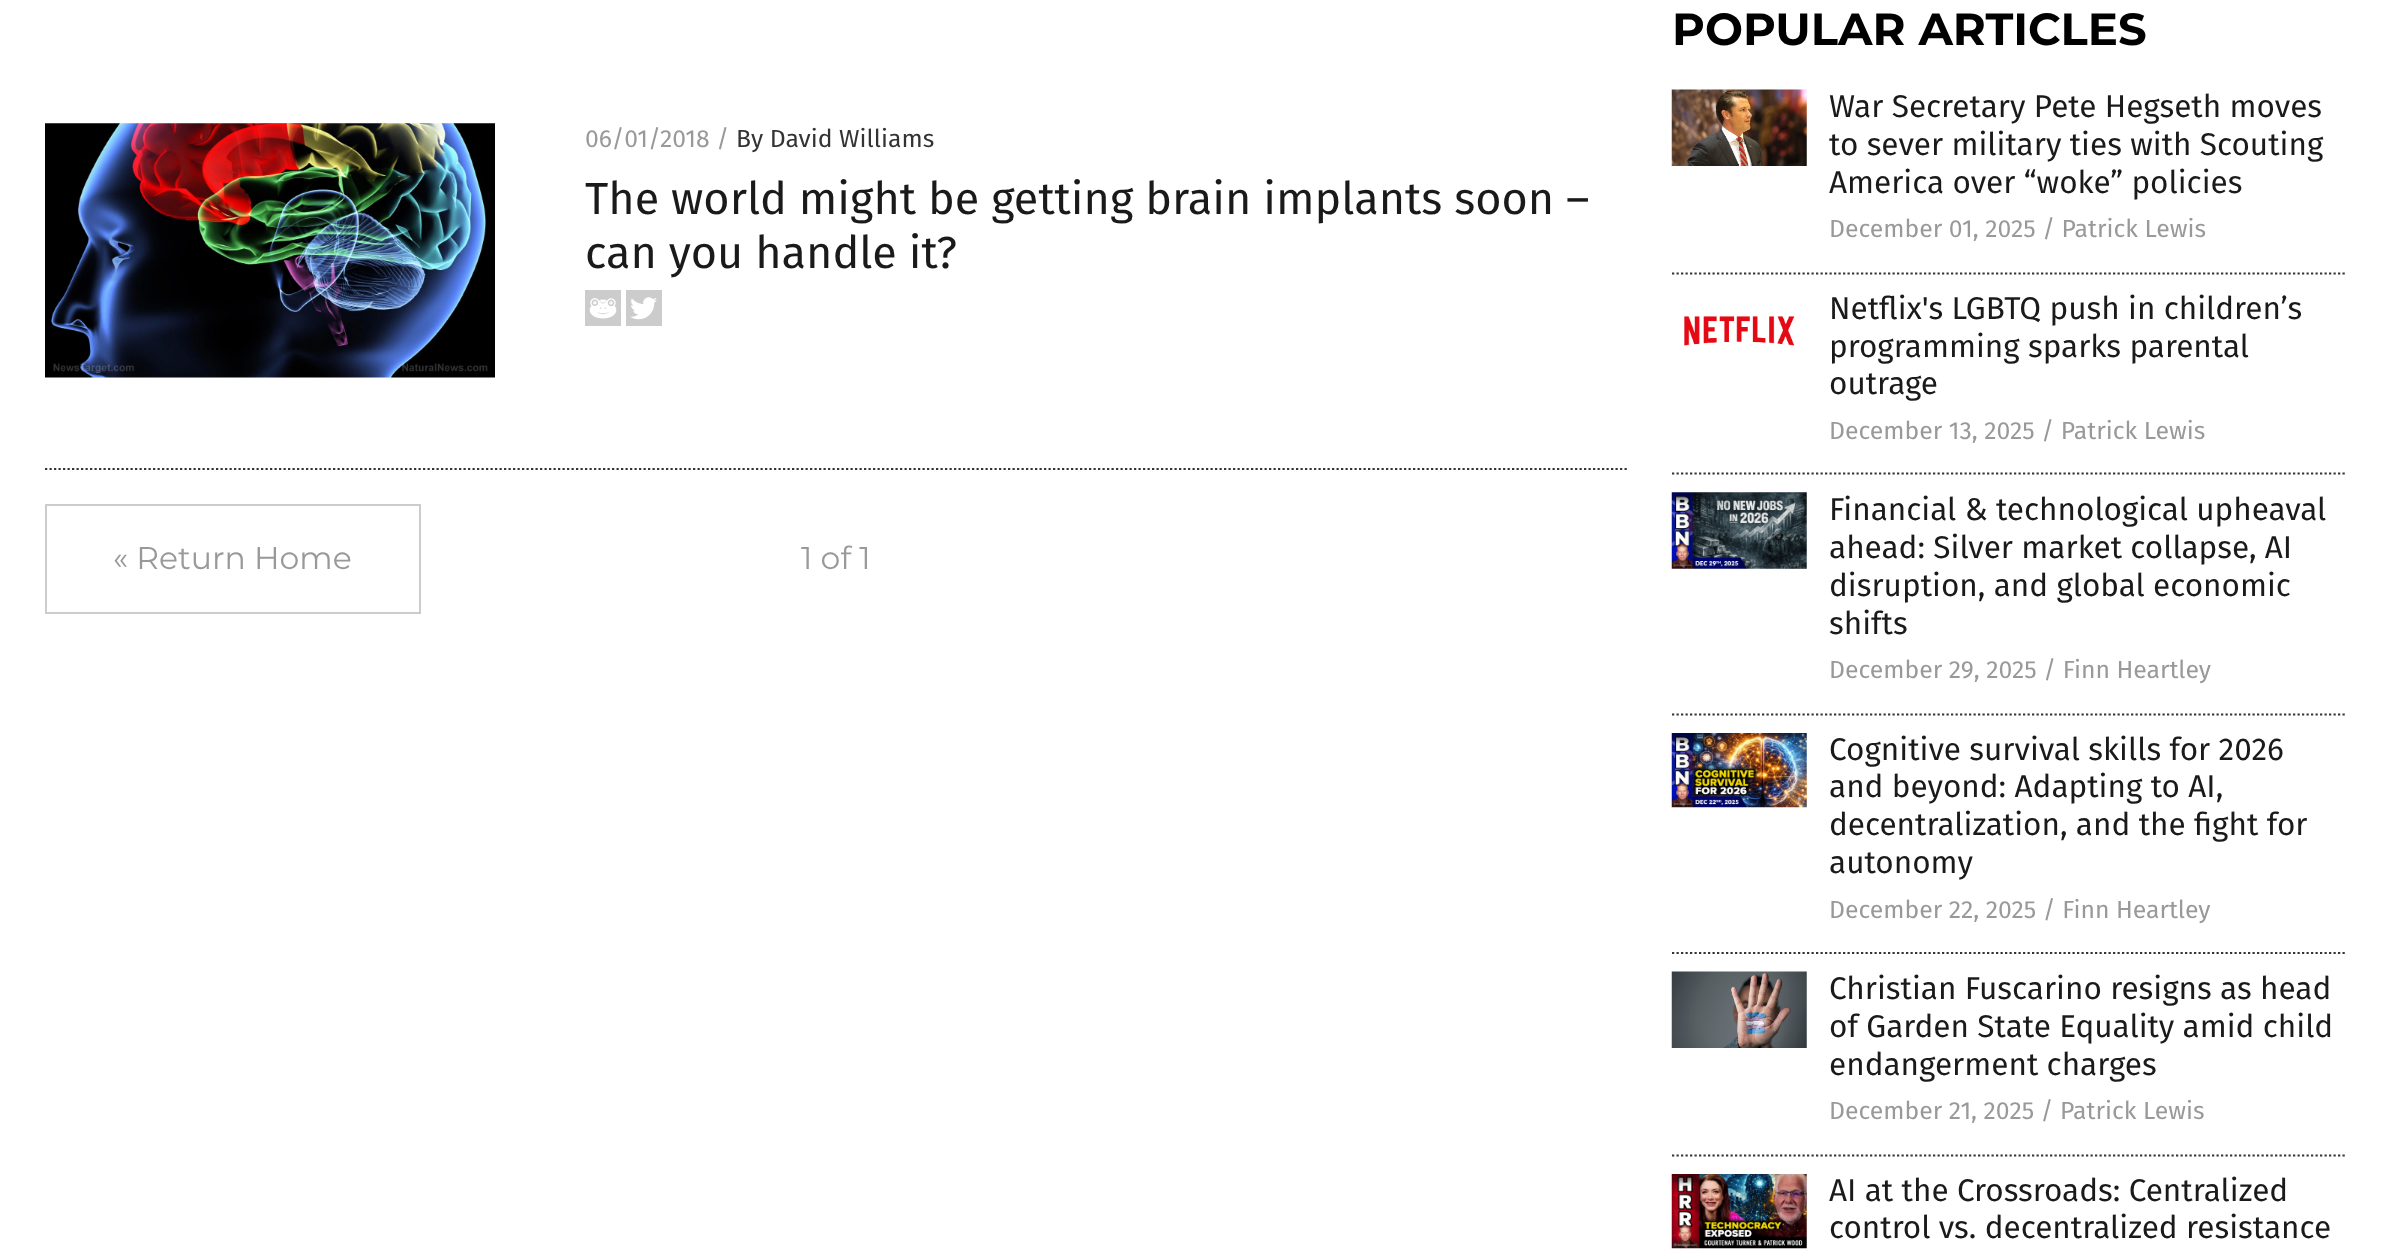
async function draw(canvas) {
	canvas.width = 2390;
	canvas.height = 1259;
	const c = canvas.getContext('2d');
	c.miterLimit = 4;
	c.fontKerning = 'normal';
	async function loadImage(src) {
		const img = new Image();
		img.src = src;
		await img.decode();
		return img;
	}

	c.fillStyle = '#fff';
	c.fillRect(0, 0, 2390, 1259);
	c.beginPath();
	c.moveTo(45, 469);
	c.lineTo(1627, 469);
	c.strokeStyle = '#343434';
	c.lineWidth = 2.2;
	c.setLineDash([2.25, 2.25]);
	c.stroke();
	c.drawImage(await loadImage('img1.png'), 45, 123, 450, 255);
	c.font = '24.75px Fira Sans';
	c.fillStyle = '#999';
	c.fillText('06/01/2018 /', 585, 147);
	c.fillStyle = '#333';
	c.fillText('By David Williams', 736, 147);
	c.font = '45px Fira Sans';
	c.fillStyle = '#1a1a1a';
	c.fillText('The world might be getting brain implants soon –', 585, 214);
	c.fillText('can you handle it?', 585, 268);
	c.drawImage(await loadImage('img2.png'), 585, 290, 36, 36);
	c.drawImage(await loadImage('img3.png'), 626, 290, 36, 36);
	c.strokeStyle = '#ccc';
	c.lineWidth = 2;
	c.setLineDash([]);
	c.strokeRect(46, 505, 374, 108);
	c.font = '31.5px Montserrat';
	c.fillStyle = '#999';
	c.fillText('« Return Home', 113, 569);
	c.fillText('1 of 1', 801, 569);
	c.font = 'bold 45px Montserrat';
	c.fillStyle = '#000';
	c.fillText('POPULAR ARTICLES', 1672, 45);
	c.beginPath();
	c.moveTo(1672, 273.5);
	c.lineTo(2347, 273.5);
	c.strokeStyle = '#343434';
	c.lineWidth = 2.2;
	c.setLineDash([2.25, 2.25]);
	c.stroke();
	c.drawImage(await loadImage('img4.png'), 1671, 89, 136, 77);
	c.font = '31.5px Fira Sans';
	c.fillStyle = '#1a1a1a';
	for (const [text, x, y] of [
		['War Secretary Pete Hegseth moves', 1829, 117],
		['to sever military ties with Scouting', 1829, 155],
		['America over “woke” policies', 1829, 193],
	]) {
		c.fillText(text, x, y);
	}
	c.font = '24.75px Fira Sans';
	c.fillStyle = '#999';
	c.fillText('December 01, 2025 / Patrick Lewis', 1829, 237);
	c.beginPath();
	c.moveTo(1672, 473.5);
	c.lineTo(2347, 473.5);
	c.stroke();
	c.drawImage(await loadImage('img5.png'), 1684, 316, 111, 30);
	c.font = '31.5px Fira Sans';
	c.fillStyle = '#1a1a1a';
	for (const [text, x, y] of [
		['Netflix\'s LGBTQ push in children’s', 1829, 319],
		['programming sparks parental', 1829, 357],
		['outrage', 1829, 394],
	]) {
		c.fillText(text, x, y);
	}
	c.font = '24.75px Fira Sans';
	c.fillStyle = '#999';
	c.fillText('December 13, 2025 / Patrick Lewis', 1829, 439);
	c.beginPath();
	c.moveTo(1672, 714.5);
	c.lineTo(2347, 714.5);
	c.stroke();
	c.drawImage(await loadImage('img6.png'), 1671, 492, 136, 77);
	c.font = '31.5px Fira Sans';
	c.fillStyle = '#1a1a1a';
	for (const [text, x, y] of [
		['Financial & technological upheaval', 1829, 520],
		['ahead: Silver market collapse, AI', 1829, 558],
		['disruption, and global economic', 1829, 596],
		['shifts', 1829, 634],
	]) {
		c.fillText(text, x, y);
	}
	c.font = '24.75px Fira Sans';
	c.fillStyle = '#999';
	c.fillText('December 29, 2025 / Finn Heartley', 1829, 678);
	c.beginPath();
	c.moveTo(1672, 953);
	c.lineTo(2347, 953);
	c.stroke();
	c.drawImage(await loadImage('img7.png'), 1671, 733, 136, 75);
	c.font = '31.5px Fira Sans';
	c.fillStyle = '#1a1a1a';
	for (const [text, x, y] of [
		['Cognitive survival skills for 2026', 1829, 760],
		['and beyond: Adapting to AI,', 1829, 797],
		['decentralization, and the fight for', 1829, 835],
		['autonomy', 1829, 873],
	]) {
		c.fillText(text, x, y);
	}
	c.font = '24.75px Fira Sans';
	c.fillStyle = '#999';
	c.fillText('December 22, 2025 / Finn Heartley', 1829, 918);
	c.beginPath();
	c.moveTo(1672, 1155.5);
	c.lineTo(2347, 1155.5);
	c.stroke();
	c.drawImage(await loadImage('img8.png'), 1671, 971, 136, 77);
	c.font = '31.5px Fira Sans';
	c.fillStyle = '#1a1a1a';
	for (const [text, x, y] of [
		['Christian Fuscarino resigns as head', 1829, 999],
		['of Garden State Equality amid child', 1829, 1037],
		['endangerment charges', 1829, 1075],
	]) {
		c.fillText(text, x, y);
	}
	c.font = '24.75px Fira Sans';
	c.fillStyle = '#999';
	c.fillText('December 21, 2025 / Patrick Lewis', 1829, 1119);
	c.drawImage(await loadImage('img9.png'), 1671, 1174, 136, 75);
	c.font = '31.5px Fira Sans';
	c.fillStyle = '#1a1a1a';
	c.fillText('AI at the Crossroads: Centralized', 1829, 1201);
	c.fillText('control vs. decentralized resistance', 1829, 1238);
}

draw(document.querySelector('canvas'));
